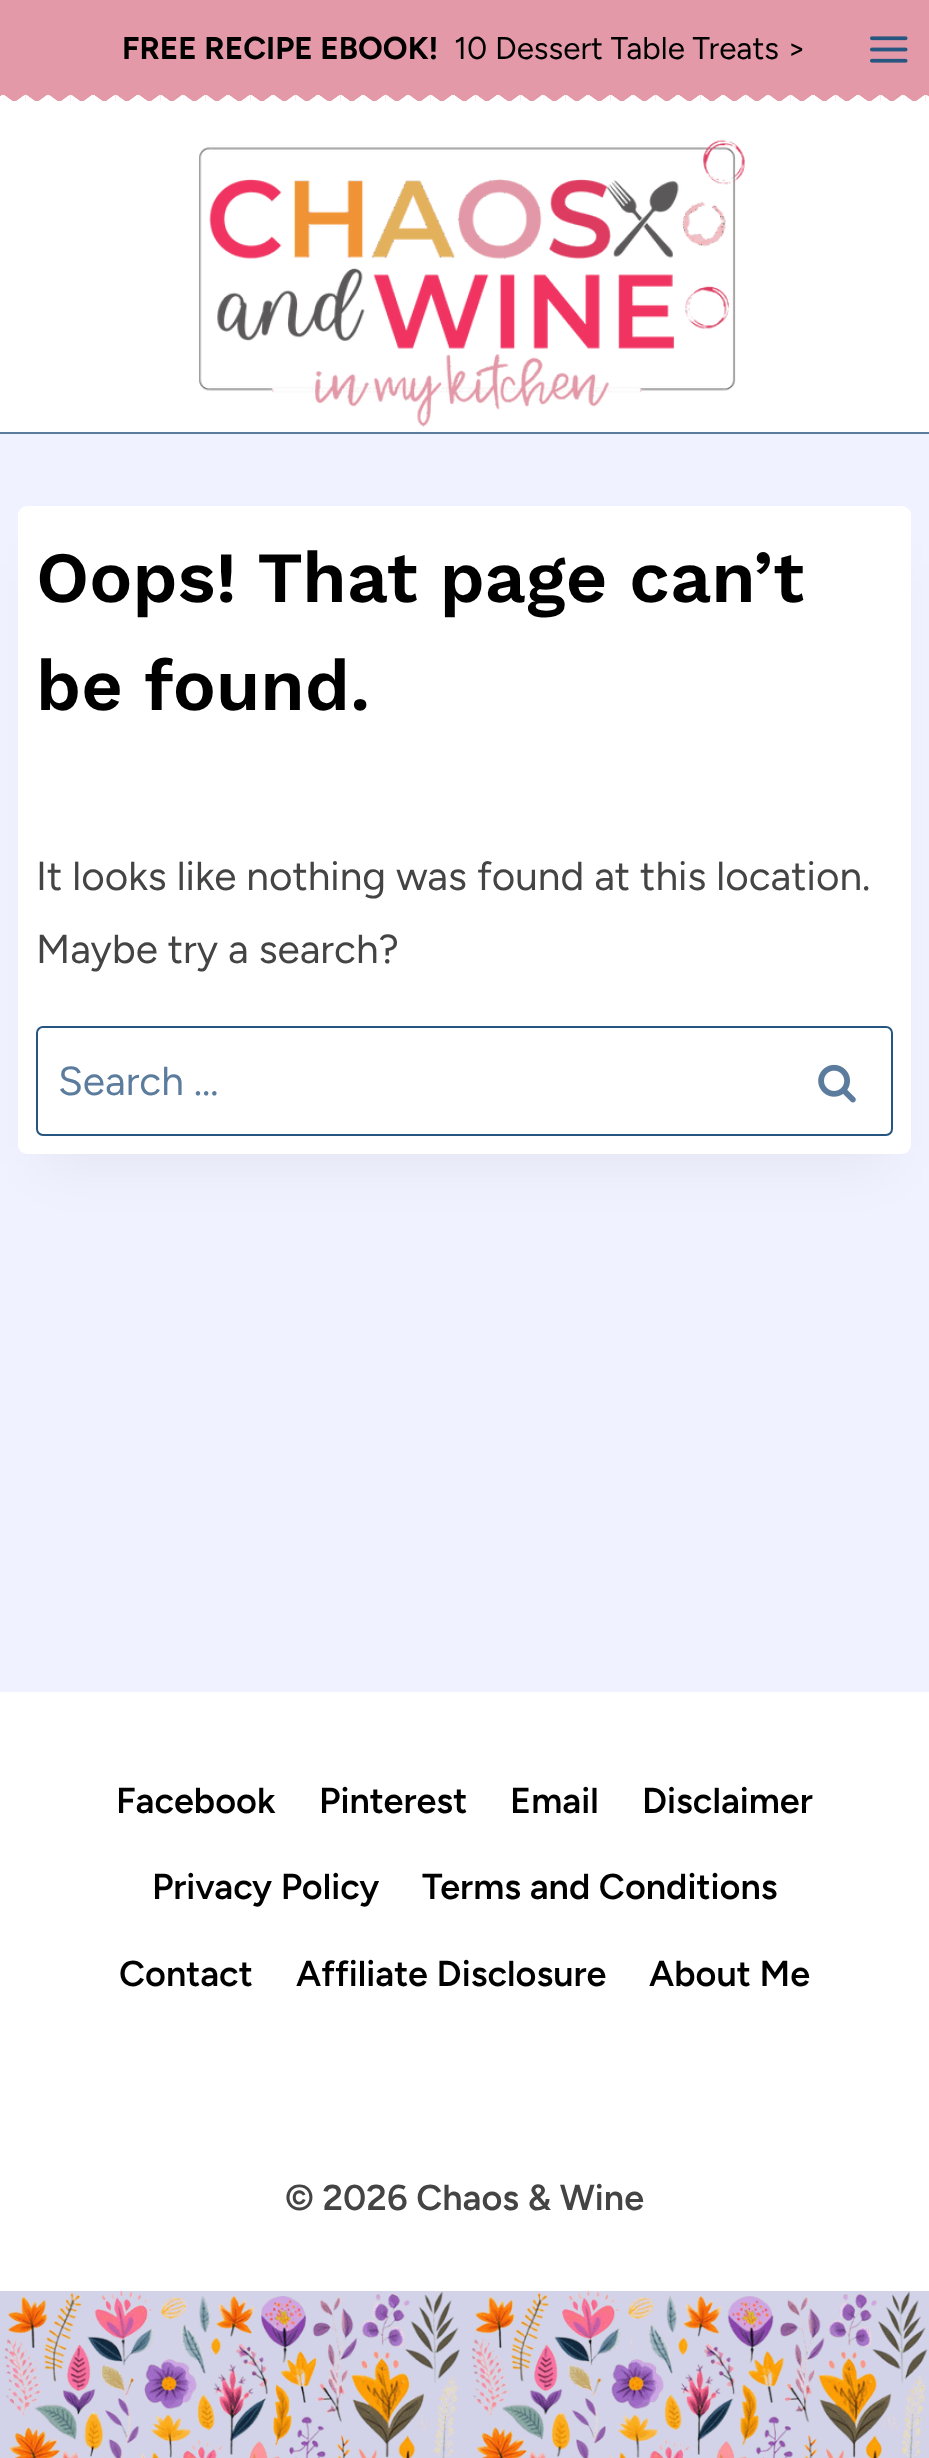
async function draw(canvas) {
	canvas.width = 929;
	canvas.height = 2458;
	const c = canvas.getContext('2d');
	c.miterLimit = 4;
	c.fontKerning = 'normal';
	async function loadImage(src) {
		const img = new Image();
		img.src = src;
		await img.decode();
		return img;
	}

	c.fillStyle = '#f1f2ff';
	c.fillRect(0, 0, 929, 2458);
	c.fillStyle = '#fff';
	c.fillRect(0, 101, 929, 331);
	c.fillStyle = '#e399a8';
	c.fillRect(0, 0, 929, 101);
	c.drawImage(await loadImage('img1.png'), 0, 94, 929, 7);
	c.font = 'bold 31.5px Figtree';
	c.fillStyle = '#000';
	c.fillText('FREE RECIPE EBOOK!', 122, 59);
	c.font = '31.5px Figtree';
	c.fillText('10 Dessert Table Treats >', 454, 59);
	c.drawImage(await loadImage('img2.png'), 870, 36, 38, 27);
	c.fillStyle = '#5c7c9d';
	c.fillRect(0, 432, 929, 2);
	c.drawImage(await loadImage('img3.png'), 199, 139, 546, 288);
	c.fillStyle = '#0000000d';
	c.filter = 'blur(28px)';
	c.beginPath();
	c.rect(41, 563, 848, 603);
	c.fill();
	c.filter = 'none';
	c.fillStyle = '#fff';
	c.beginPath();
	c.roundRect(18, 506, 893, 648, 9);
	c.fill();
	c.font = '600 72px Work Sans';
	c.fillStyle = '#000';
	c.fillText('Oops! That page can’t', 36, 602);
	c.fillText('be found.', 36, 710);
	c.font = '40.5px Figtree';
	c.fillStyle = '#444';
	c.fillText('It looks like nothing was found at this location.', 36, 890);
	c.fillText('Maybe try a search?', 36, 963);
	c.beginPath();
	c.roundRect(37, 1027, 855, 108, 6);
	c.strokeStyle = '#26557f';
	c.lineWidth = 2;
	c.stroke();
	c.fillStyle = '#5c7c9d';
	c.fillText('Search …', 58, 1095);
	c.drawImage(await loadImage('img4.png'), 818, 1064, 38, 39);
	c.fillStyle = '#fff';
	c.fillRect(0, 1692, 929, 599);
	c.font = '600 36px Figtree';
	c.fillStyle = '#000';
	for (const [text, x, y] of [
		['Facebook', 116, 1813],
		['Pinterest', 319, 1813],
		['Email', 510, 1813],
		['Disclaimer', 642, 1813],
		['Privacy Policy', 152, 1899],
		['Terms and Conditions', 422, 1899],
		['Contact', 119, 1986],
		['Affiliate Disclosure', 296, 1986],
		['About Me', 649, 1986],
	]) {
		c.fillText(text, x, y);
	}
	c.fillStyle = '#444';
	c.fillText('© 2026 Chaos & Wine', 285, 2210);
	c.fillStyle = '#d2d3e8';
	c.fillRect(0, 2291, 929, 167);
	c.drawImage(await loadImage('img5.png'), 4, 2290, 924, 168);
}

draw(document.querySelector('canvas'));
